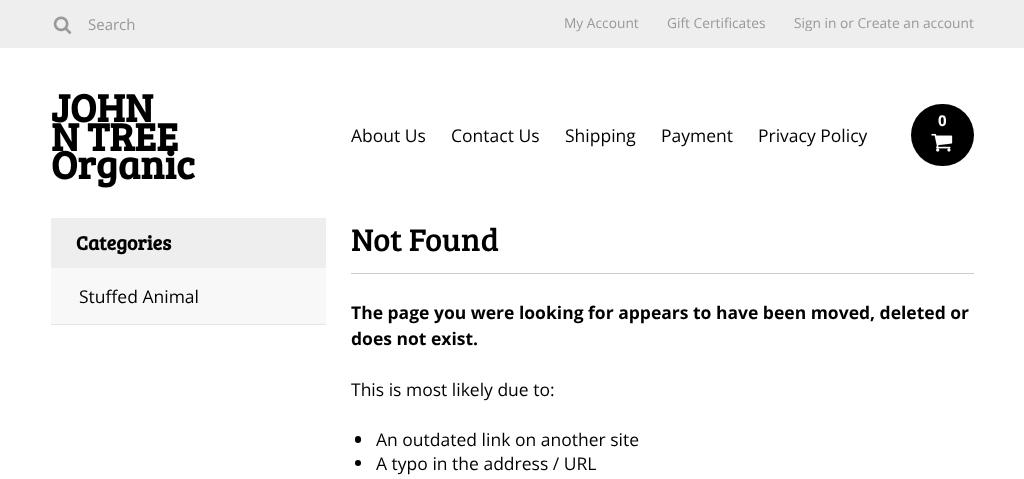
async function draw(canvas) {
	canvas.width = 1024;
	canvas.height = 479;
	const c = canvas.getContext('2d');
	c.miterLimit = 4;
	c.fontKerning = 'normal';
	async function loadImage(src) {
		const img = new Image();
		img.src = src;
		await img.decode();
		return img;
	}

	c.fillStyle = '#fff';
	c.fillRect(0, 0, 1024, 479);
	c.fillStyle = '#eee';
	c.fillRect(0, 0, 1024, 48);
	c.drawImage(await loadImage('img1.png'), 53, 16, 19, 18);
	c.font = '15px Open Sans';
	c.fillStyle = '#999';
	c.fillText('Search', 88, 30);
	c.font = '13.75px Open Sans';
	c.fillText('My Account', 564, 28);
	c.fillText('Gift Certificates', 667, 28);
	c.save();
	c.beginPath();
	c.rect(551, 13, 423, 18);
	c.clip();
	c.fillText('Sign in', 794, 28);
	c.restore();
	c.fillText('or Create an account', 840, 28);
	c.font = 'bold 40px Bree Serif';
	c.fillStyle = '#000';
	for (const [text, x, y] of [
		['JOHN', 51, 122],
		['N TREE', 51, 151],
		['Organic', 51, 179],
	]) {
		c.fillText(text, x, y);
	}
	c.beginPath();
	c.roundRect(911, 104, 63, 62, 31);
	c.fill();
	c.font = 'bold 15px Open Sans';
	c.fillStyle = '#fff';
	c.fillText('0', 938, 126);
	c.drawImage(await loadImage('img2.png'), 931, 133, 22, 19);
	c.font = '17.5px Open Sans';
	c.fillStyle = '#000';
	for (const [text, x, y] of [
		['About Us', 351, 142],
		['Contact Us', 451, 142],
		['Shipping', 565, 142],
		['Payment', 661, 142],
		['Privacy Policy', 758, 142],
	]) {
		c.fillText(text, x, y);
	}
	c.fillStyle = '#f8f8f8';
	c.fillRect(51, 268, 275, 56);
	c.fillStyle = '#eee';
	c.fillRect(51, 218, 275, 50);
	c.font = 'bold 20px Bree Serif';
	c.fillStyle = '#000';
	c.fillText('Categories', 76, 250);
	c.fillStyle = '#e6e6e6';
	c.fillRect(51, 324, 275, 1);
	c.font = '17.5px Open Sans';
	c.fillStyle = '#000';
	c.fillText('Stuffed Animal', 79, 303);
	c.fillStyle = '#ccc';
	c.fillRect(351, 273, 623, 1);
	c.font = '32.5px Bree Serif';
	c.fillStyle = '#000';
	c.fillText('Not Found', 351, 251);
	c.font = 'bold 17.5px Open Sans';
	c.fillText('The page you were looking for appears to have been moved, deleted or', 351, 319);
	c.fillText('does not exist.', 351, 345);
	c.font = '17.5px Open Sans';
	c.fillText('This is most likely due to:', 351, 396);
	c.beginPath();
	c.roundRect(355, 436, 6, 7, 3);
	c.fill();
	c.fillText('An outdated link on another site', 376, 446);
	c.beginPath();
	c.arc(358, 463, 3, 0, 2 * Math.PI);
	c.fill();
	c.fillText('A typo in the address / URL', 376, 470);
}

draw(document.querySelector('canvas'));
